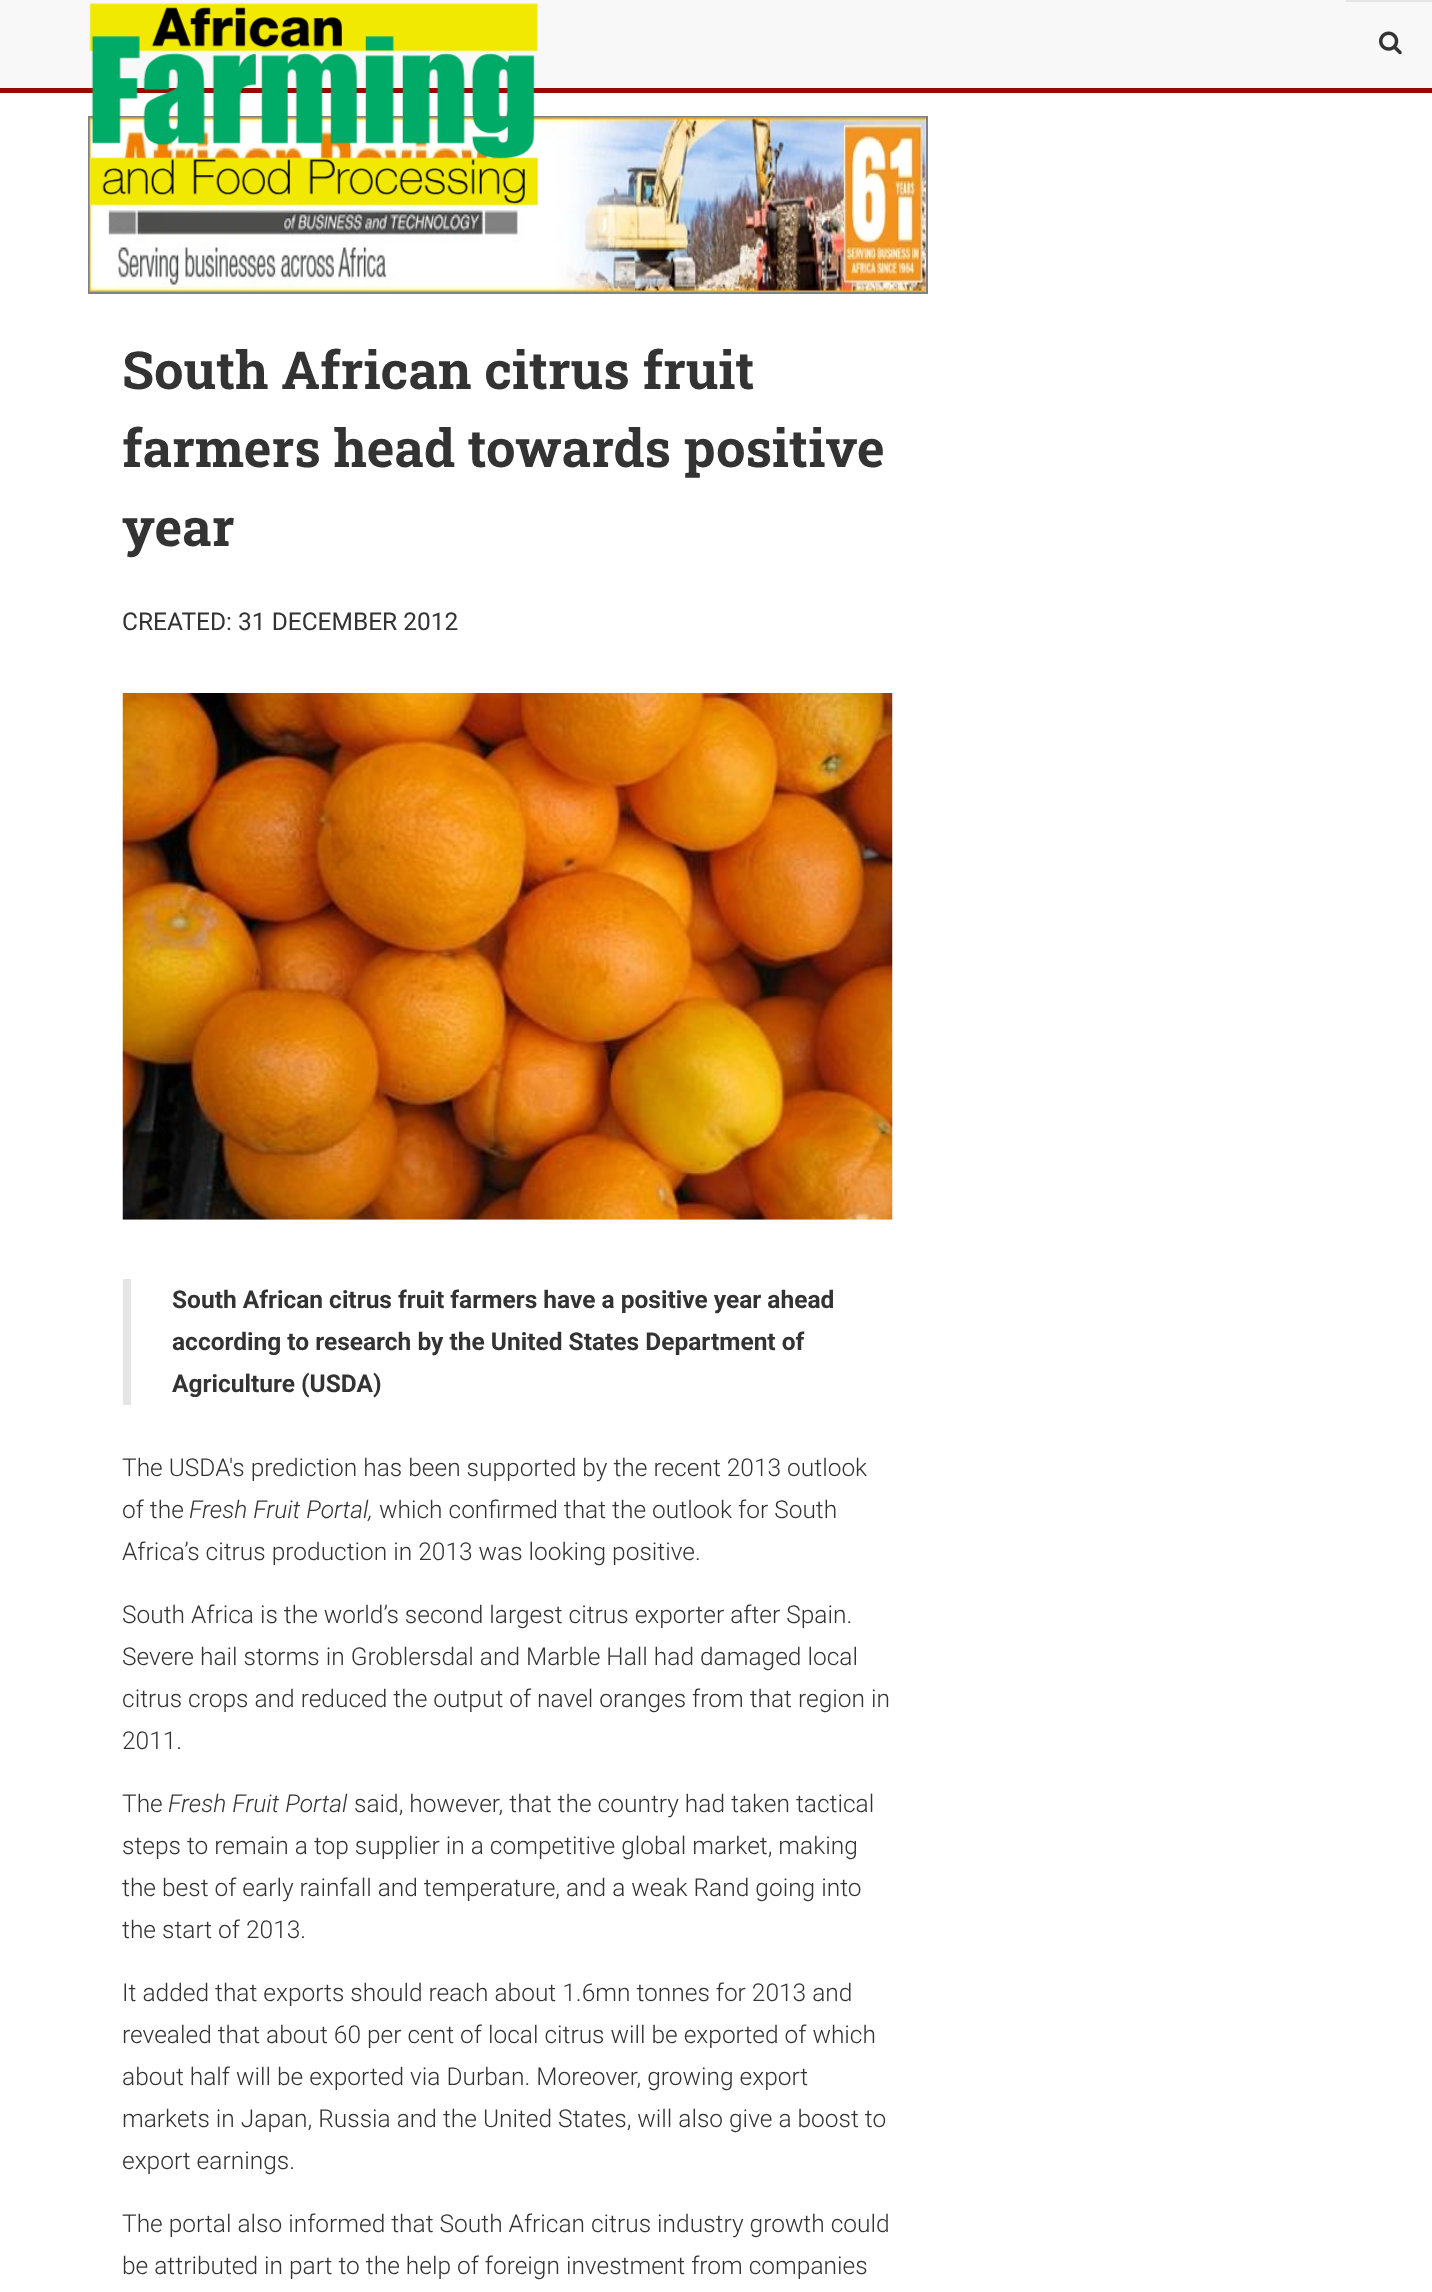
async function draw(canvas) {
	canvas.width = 1432;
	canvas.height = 2292;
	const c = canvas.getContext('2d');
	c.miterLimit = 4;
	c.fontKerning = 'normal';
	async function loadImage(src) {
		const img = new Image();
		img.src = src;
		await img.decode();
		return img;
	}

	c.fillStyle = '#fff';
	c.fillRect(0, 0, 1432, 2292);
	c.fillStyle = '#f8f8f8';
	c.fillRect(0, 0, 1432, 88);
	c.fillStyle = '#9b0802';
	c.fillRect(0, 88, 1432, 5);
	c.strokeStyle = '#808080';
	c.lineWidth = 2;
	c.strokeRect(89, 117, 838, 176);
	c.drawImage(await loadImage('img3.png'), 89, 117, 837, 176);
	c.drawImage(await loadImage('img1.png'), 89, 3, 449, 203);
	c.fillStyle = '#e5e5e5';
	c.fillRect(1346, 0, 86, 2);
	c.drawImage(await loadImage('img2.png'), 1379, 31, 23, 24);
	c.font = 'bold 52.5px Roboto Slab';
	c.fillStyle = '#333';
	for (const [text, x, y] of [
		['South African citrus fruit', 122, 389],
		['farmers head towards positive', 122, 467],
		['year', 122, 546],
	]) {
		c.fillText(text, x, y);
	}
	c.font = '24.5px Roboto';
	c.fillText('CREATED: 31 DECEMBER 2012', 122, 630);
	c.drawImage(await loadImage('img4.png'), 122, 693, 771, 527);
	c.fillStyle = '#e5e5e5';
	c.fillRect(123, 1279, 8, 126);
	c.font = 'bold 24.5px Roboto';
	c.fillStyle = '#333';
	for (const [text, x, y] of [
		['South African citrus fruit farmers have a positive year ahead', 172, 1308],
		['according to research by the United States Department of', 172, 1350],
		['Agriculture (USDA)', 172, 1392],
	]) {
		c.fillText(text, x, y);
	}
	c.font = '300 24.5px Roboto';
	c.fillText('The USDA\'s prediction has been supported by the recent 2013 outlook', 122, 1476);
	c.fillText('of the', 122, 1518);
	c.font = 'italic 300 24.5px Roboto';
	c.fillText('Fresh Fruit Portal,', 189, 1518);
	c.font = '300 24.5px Roboto';
	for (const [text, x, y] of [
		['which confirmed that the outlook for South', 379, 1518],
		['Africa’s citrus production in 2013 was looking positive.', 122, 1560],
		['South Africa is the world’s second largest citrus exporter after Spain.', 122, 1623],
		['Severe hail storms in Groblersdal and Marble Hall had damaged local', 122, 1665],
		['citrus crops and reduced the output of navel oranges from that region in', 122, 1707],
		['2011.', 122, 1749],
		['The', 122, 1812],
	]) {
		c.fillText(text, x, y);
	}
	c.font = 'italic 300 24.5px Roboto';
	c.fillText('Fresh Fruit Portal', 168, 1812);
	c.font = '300 24.5px Roboto';
	for (const [text, x, y] of [
		['said, however, that the country had taken tactical', 354, 1812],
		['steps to remain a top supplier in a competitive global market, making', 122, 1854],
		['the best of early rainfall and temperature, and a weak Rand going into', 122, 1896],
		['the start of 2013.', 122, 1938],
		['It added that exports should reach about 1.6mn tonnes for 2013 and', 122, 2001],
		['revealed that about 60 per cent of local citrus will be exported of which', 122, 2043],
		['about half will be exported via Durban. Moreover, growing export', 122, 2085],
		['markets in Japan, Russia and the United States, will also give a boost to', 122, 2127],
		['export earnings.', 122, 2169],
		['The portal also informed that South African citrus industry growth could', 122, 2232],
		['be attributed in part to the help of foreign investment from companies', 122, 2274],
	]) {
		c.fillText(text, x, y);
	}
}

draw(document.querySelector('canvas'));
